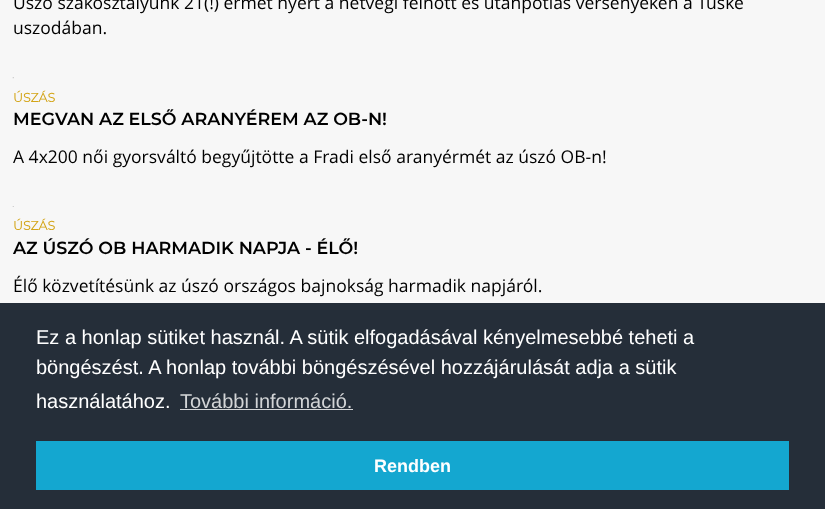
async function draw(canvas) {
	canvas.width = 825;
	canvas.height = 509;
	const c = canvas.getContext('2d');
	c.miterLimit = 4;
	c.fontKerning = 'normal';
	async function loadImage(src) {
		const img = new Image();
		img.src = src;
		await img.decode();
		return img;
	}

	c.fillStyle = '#f7f7f7';
	c.fillRect(0, 0, 825, 509);
	c.font = '17.5px Open Sans';
	c.fillStyle = '#000';
	c.fillText('Úszó szakosztályunk 21(!) érmet nyert a hétvégi felnőtt és utánpótlás versenyeken a Tüske', 13, 9);
	c.fillText('uszodában.', 13, 34);
	c.drawImage(await loadImage('img1.png'), 12, 77, 2, 2);
	c.font = 'bold 12.5px Montserrat';
	c.fillStyle = '#d3a416';
	c.fillText('ÚSZÁS', 13, 102);
	c.font = '600 17.5px Montserrat';
	c.fillStyle = '#000';
	c.fillText('MEGVAN AZ ELSŐ ARANYÉREM AZ OB-N!', 13, 125);
	c.font = '17.5px Open Sans';
	c.fillText('A 4x200 női gyorsváltó begyűjtötte a Fradi első aranyérmét az úszó OB-n!', 13, 163);
	c.drawImage(await loadImage('img2.png'), 12, 206, 2, 1);
	c.font = 'bold 12.5px Montserrat';
	c.fillStyle = '#d3a416';
	c.fillText('ÚSZÁS', 13, 230);
	c.font = '600 17.5px Montserrat';
	c.fillStyle = '#000';
	c.fillText('AZ ÚSZÓ OB HARMADIK NAPJA - ÉLŐ!', 13, 254);
	c.font = '17.5px Open Sans';
	c.fillText('Élő közvetítésünk az úszó országos bajnokság harmadik napjáról.', 13, 292);
	c.fillStyle = '#252e39';
	c.fillRect(0, 303, 825, 206);
	c.font = '20px Liberation Sans';
	c.fillStyle = '#fff';
	for (const [text, x, y] of [
		['Ez a honlap sütiket használ. A sütik elfogadásával kényelmesebbé teheti a', 36, 344],
		['böngészést. A honlap további böngészésével hozzájárulását adja a sütik', 36, 374],
		['használatához.', 36, 408],
	]) {
		c.fillText(text, x, y);
	}
	c.fillStyle = '#d3d5d7';
	c.fillText('További információ.', 180, 408);
	c.fillRect(180, 409, 173, 1);
	c.fillStyle = '#14a7d0';
	c.fillRect(36, 441, 753, 49);
	c.font = 'bold 18px Liberation Sans';
	c.fillStyle = '#fff';
	c.fillText('Rendben', 374, 472);
}

draw(document.querySelector('canvas'));
